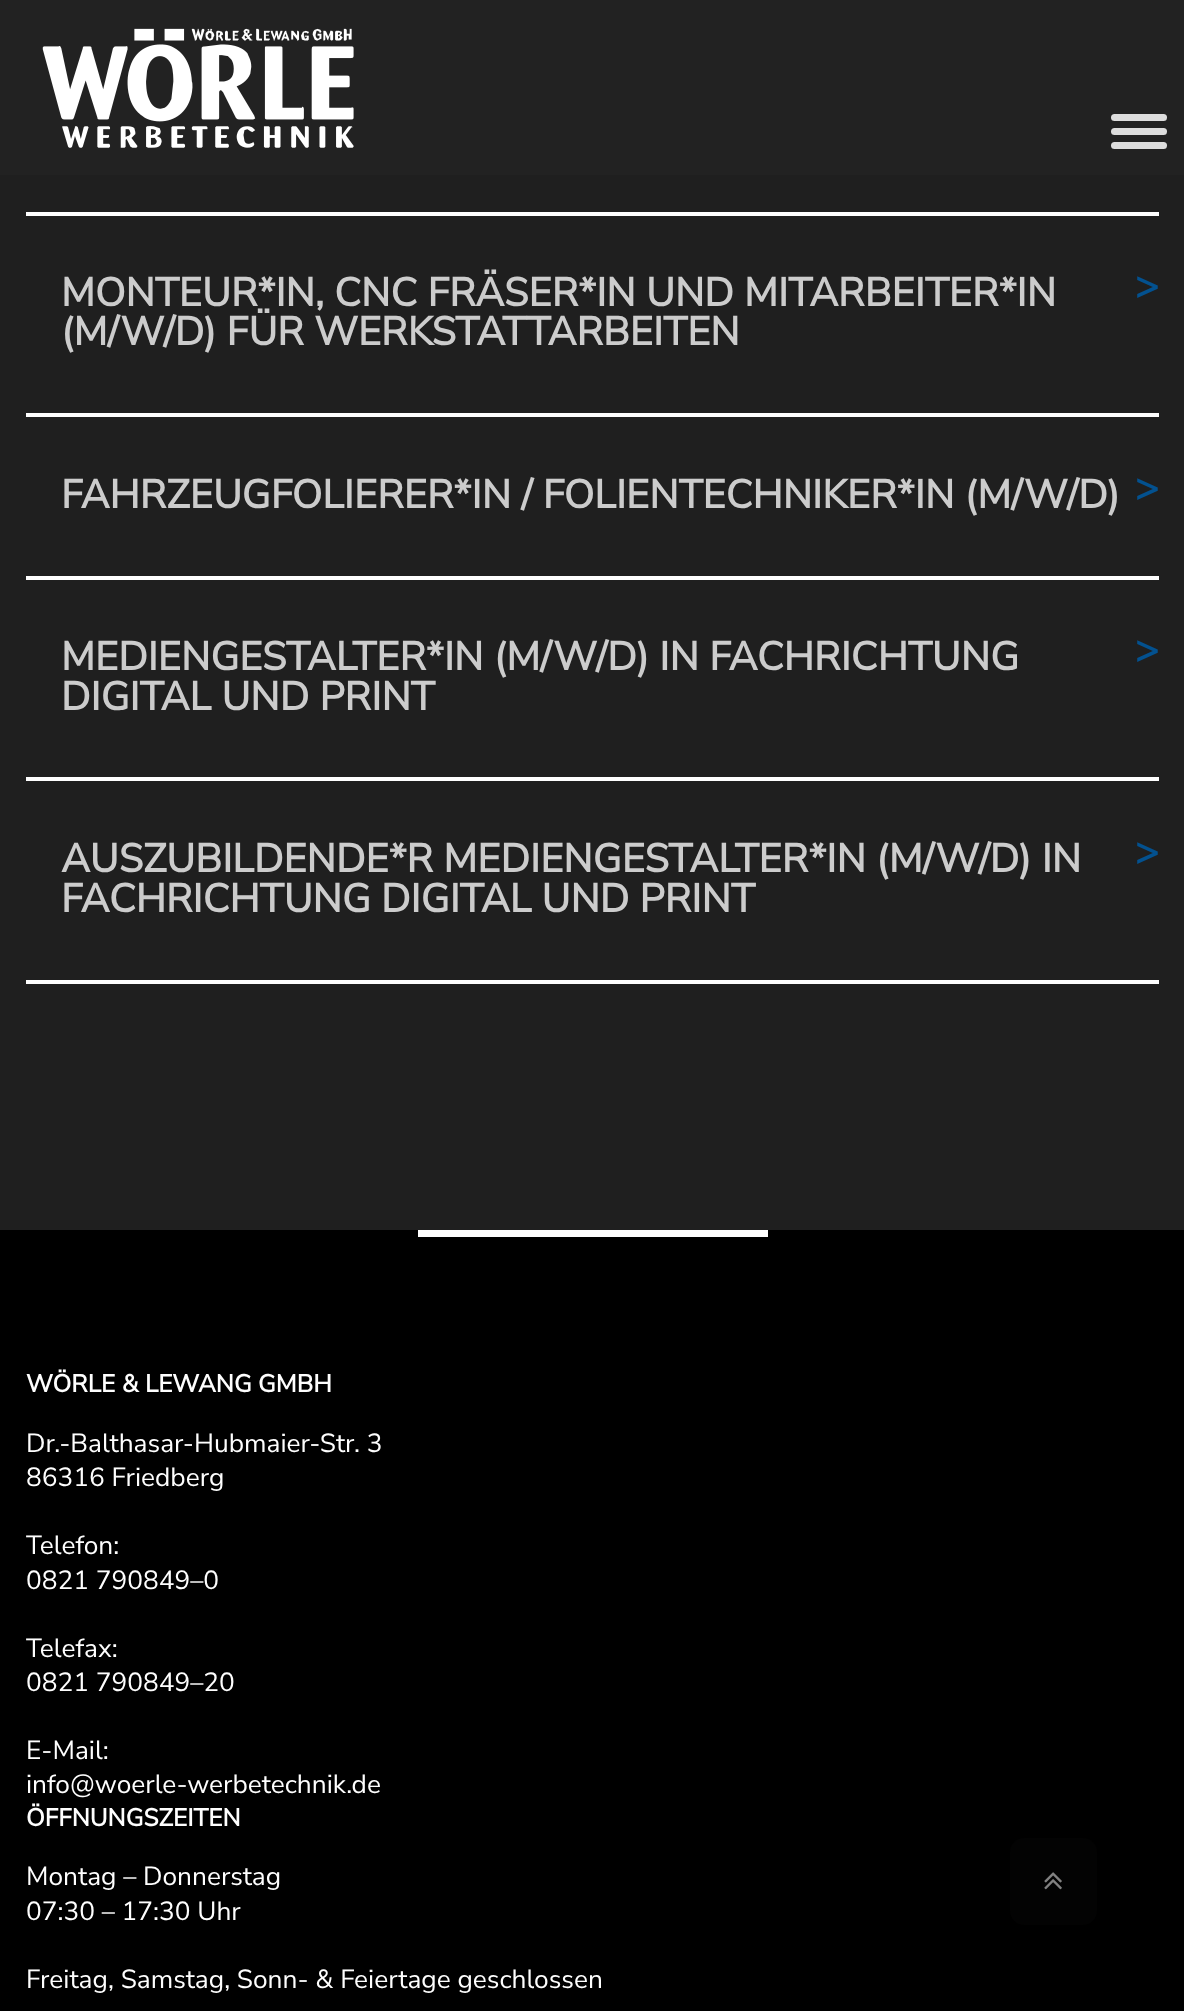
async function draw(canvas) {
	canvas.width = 1184;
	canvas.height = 2011;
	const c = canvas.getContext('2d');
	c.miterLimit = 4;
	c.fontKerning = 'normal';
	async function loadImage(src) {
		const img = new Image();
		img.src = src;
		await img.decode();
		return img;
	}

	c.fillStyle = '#1f1f1f';
	c.fillRect(0, 0, 1184, 2011);
	c.fillStyle = '#222';
	c.fillRect(0, 0, 1184, 175);
	c.drawImage(await loadImage('img1.png'), 42, 28, 312, 120);
	c.fillStyle = '#ddd';
	c.beginPath();
	c.roundRect(1111, 114, 56, 7, 3.5);
	c.fill();
	c.beginPath();
	c.roundRect(1111, 128, 56, 7, 3.5);
	c.fill();
	c.beginPath();
	c.roundRect(1111, 142, 56, 7, 3.5);
	c.fill();
	c.fillStyle = '#fefefe';
	c.fillRect(26, 212, 1133, 4);
	c.font = 'bold 39.75px Nunito Sans';
	c.fillStyle = '#ccc';
	c.fillText('MONTEUR*IN, CNC FRÄSER*IN UND MITARBEITER*IN', 61, 306);
	c.fillStyle = '#03518f';
	c.fillText('>', 1135, 299);
	c.fillStyle = '#ccc';
	c.fillText('(M/W/D) FÜR WERKSTATTARBEITEN', 61, 345);
	c.fillStyle = '#fefefe';
	c.fillRect(26, 413, 1133, 4);
	c.fillStyle = '#ccc';
	c.fillText('FAHRZEUGFOLIERER*IN / FOLIENTECHNIKER*IN (M/W/D)', 61, 508);
	c.fillStyle = '#03518f';
	c.fillText('>', 1135, 501);
	c.fillStyle = '#fefefe';
	c.fillRect(26, 576, 1133, 4);
	c.fillStyle = '#ccc';
	c.fillText('MEDIENGESTALTER*IN (M/W/D) IN FACHRICHTUNG', 61, 670);
	c.fillStyle = '#03518f';
	c.fillText('>', 1135, 663);
	c.fillStyle = '#ccc';
	c.fillText('DIGITAL UND PRINT', 61, 710);
	c.fillStyle = '#fefefe';
	c.fillRect(26, 980, 1133, 4);
	c.fillRect(26, 777, 1133, 4);
	c.fillStyle = '#ccc';
	c.fillText('AUSZUBILDENDE*R MEDIENGESTALTER*IN (M/W/D) IN', 61, 872);
	c.fillStyle = '#03518f';
	c.fillText('>', 1135, 865);
	c.fillStyle = '#ccc';
	c.fillText('FACHRICHTUNG DIGITAL UND PRINT', 61, 912);
	c.fillStyle = '#000';
	c.fillRect(0, 1230, 1184, 781);
	c.fillStyle = '#fefefe';
	c.fillRect(418, 1230, 350, 7);
	c.font = 'bold 24.5px Nunito Sans';
	c.fillText('WÖRLE & LEWANG GMBH', 26, 1392);
	c.font = '26.25px Nunito Sans';
	for (const [text, x, y] of [
		['Dr.-Balthasar-Hubmaier-Str. 3', 26, 1452],
		['86316 Friedberg', 26, 1486],
		['Telefon:', 26, 1554],
		['0821 790849–0', 26, 1589],
		['Telefax:', 26, 1657],
		['0821 790849–20', 26, 1691],
		['E-Mail:', 26, 1759],
		['info@woerle-werbetechnik.de', 26, 1793],
	]) {
		c.fillText(text, x, y);
	}
	c.font = 'bold 24.5px Nunito Sans';
	c.fillText('ÖFFNUNGSZEITEN', 26, 1826);
	c.font = '26.25px Nunito Sans';
	for (const [text, x, y] of [
		['Montag – Donnerstag', 26, 1885],
		['07:30 – 17:30 Uhr', 26, 1920],
		['Freitag, Samstag, Sonn- & Feiertage geschlossen', 26, 1988],
	]) {
		c.fillText(text, x, y);
	}
	c.fillStyle = '#030303';
	c.beginPath();
	c.roundRect(1010, 1838, 87, 87, 14);
	c.fill();
	c.drawImage(await loadImage('img2.png'), 1044, 1872, 18, 18);
}

draw(document.querySelector('canvas'));
